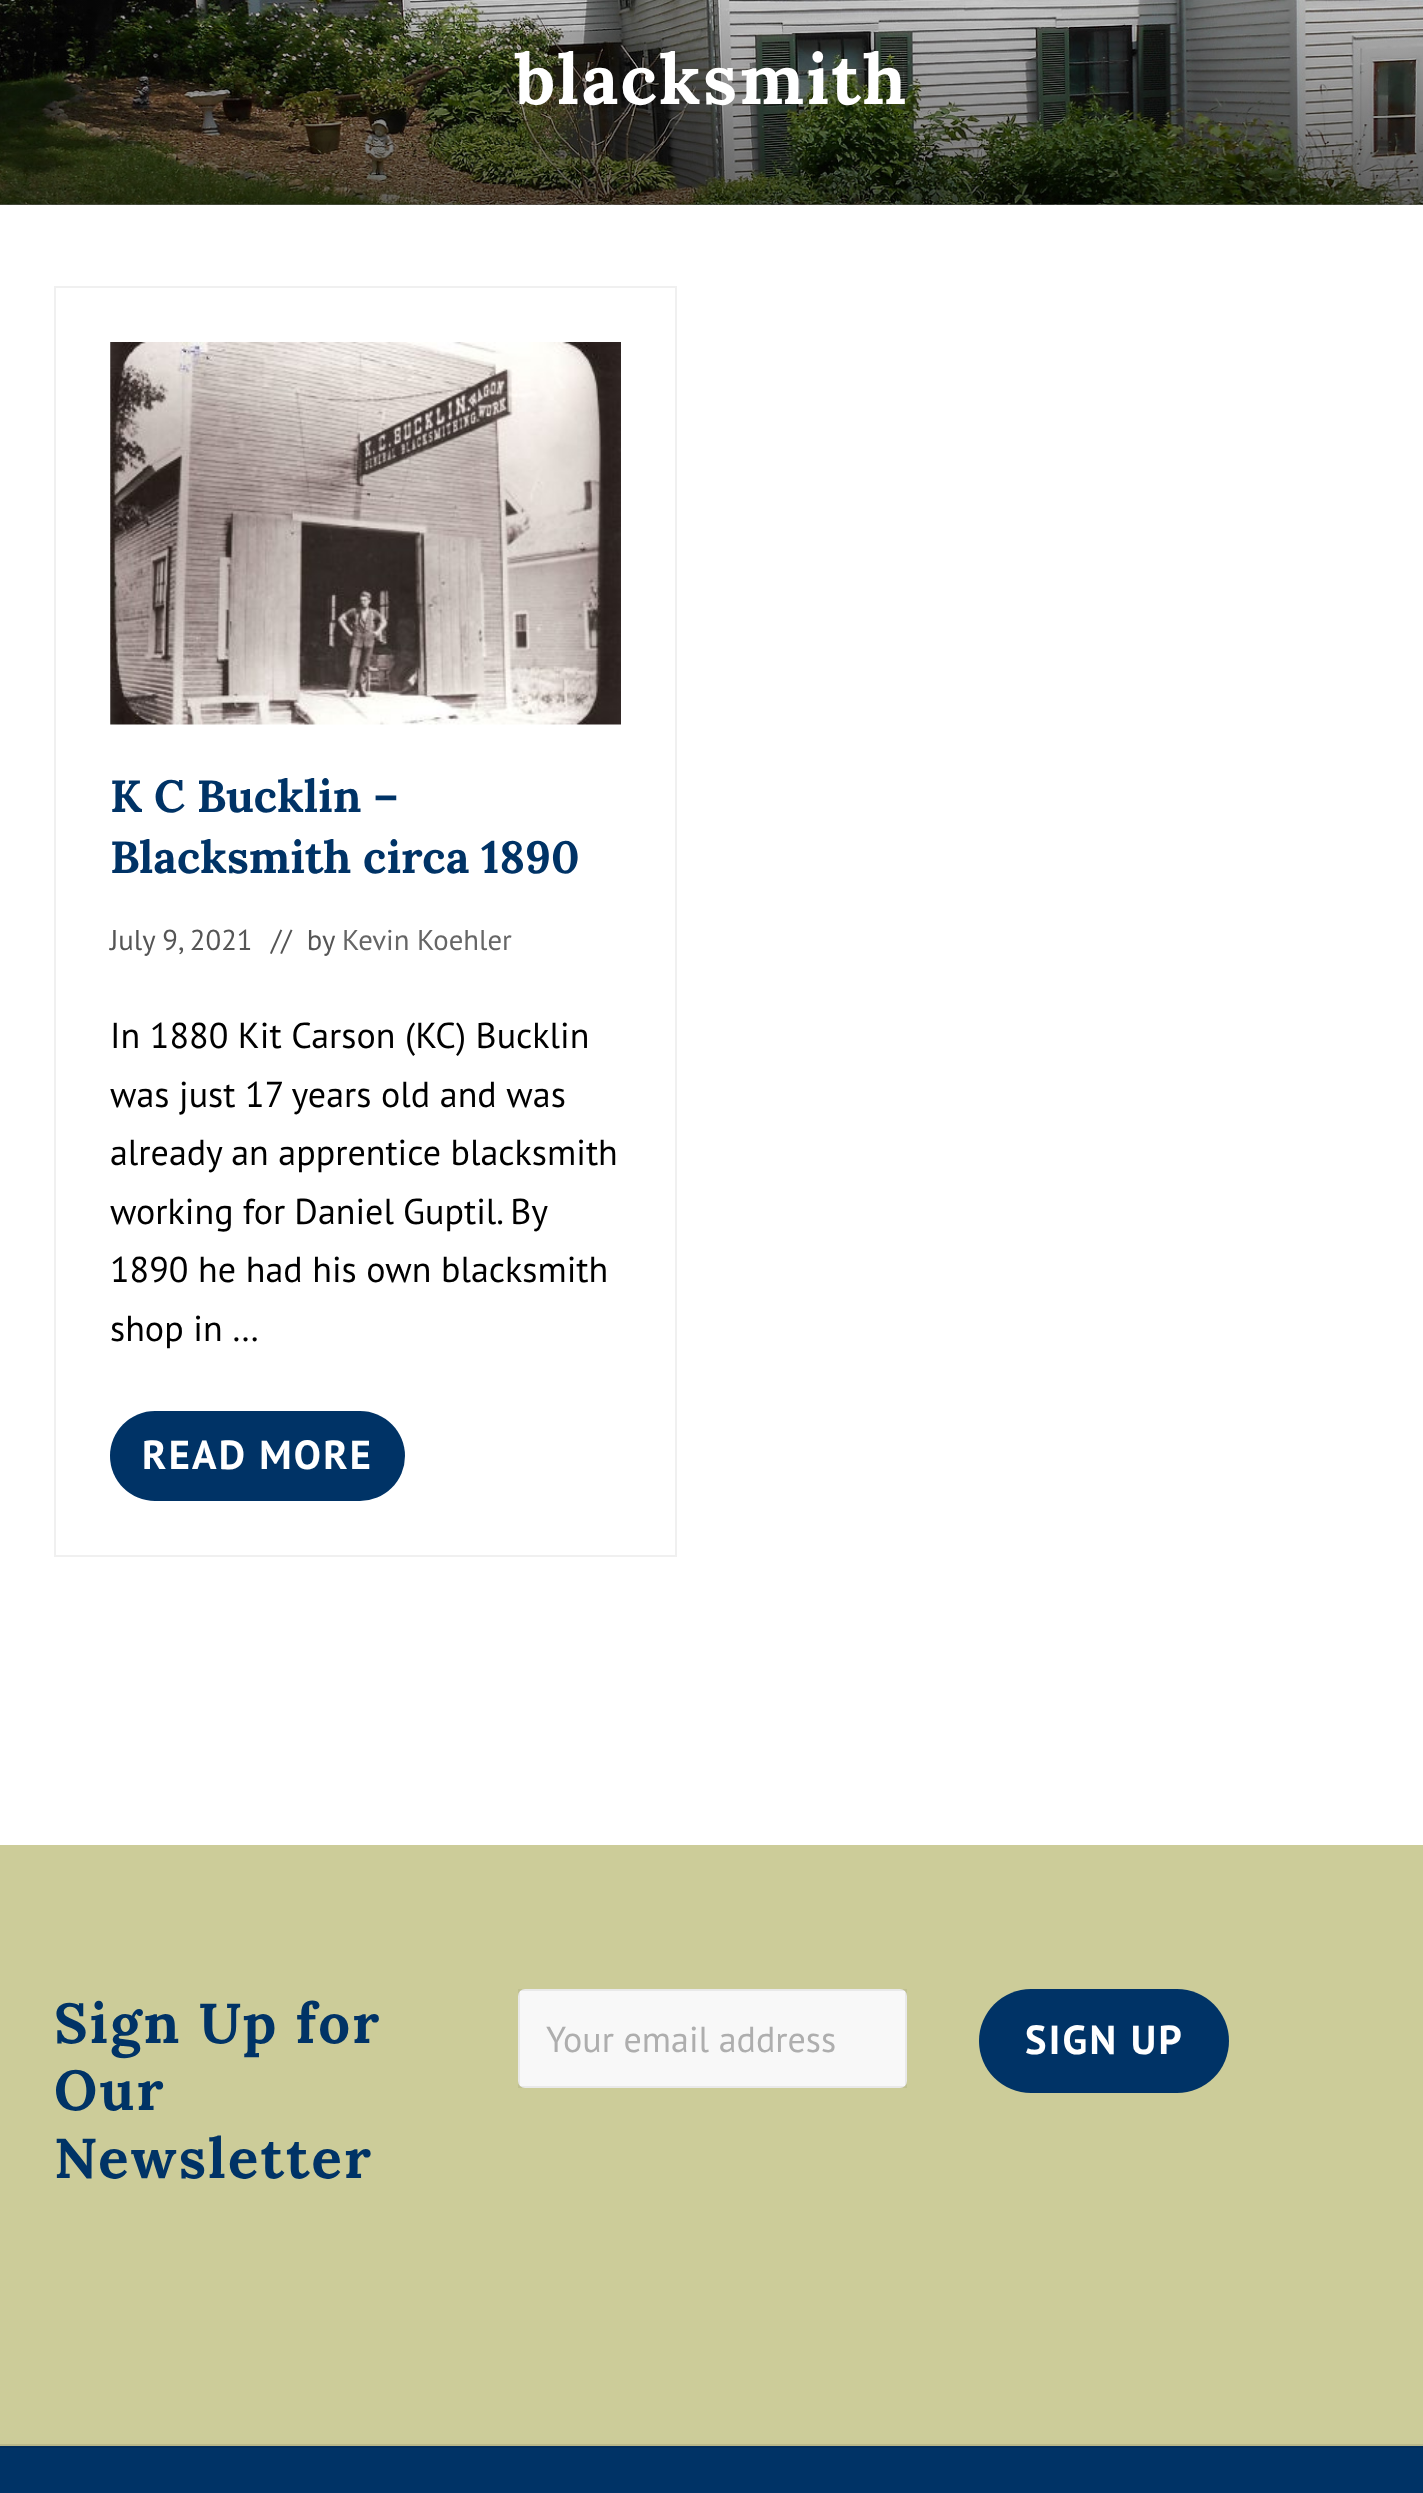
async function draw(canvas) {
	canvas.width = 1423;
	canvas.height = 2493;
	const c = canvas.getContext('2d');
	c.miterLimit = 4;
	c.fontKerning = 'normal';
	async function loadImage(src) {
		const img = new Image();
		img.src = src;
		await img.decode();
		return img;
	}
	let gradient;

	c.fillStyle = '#fff';
	c.fillRect(0, 0, 1423, 2493);
	c.drawImage(await loadImage('img1.png'), 0, 0, 1423, 205);
	gradient = c.createLinearGradient(712, -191, 712, 205);
	gradient.addColorStop(0.25, '#00000000');
	gradient.addColorStop(1, '#00000099');
	c.fillStyle = gradient;
	c.fillRect(0, 0, 1423, 205);
	c.letterSpacing = '2.25px';
	c.font = 'bold 70.25px Lora';
	c.fillStyle = '#fff';
	c.fillText('blacksmith', 515, 104);
	c.strokeStyle = '#f0f0f0';
	c.lineWidth = 2;
	c.strokeRect(55, 287, 621, 1269);
	c.drawImage(await loadImage('img2.png'), 110, 342, 511, 383);
	c.letterSpacing = '0px';
	c.font = 'bold 45px Lora';
	c.fillStyle = '#036';
	c.fillText('K C Bucklin –', 110, 812);
	c.fillText('Blacksmith circa 1890', 110, 873);
	c.font = '28.75px PT Sans';
	c.fillStyle = '#555';
	c.fillText('July 9, 2021', 110, 950);
	c.fillText('//  by', 271, 950);
	c.fillStyle = '#666';
	c.fillText('Kevin Koehler', 342, 950);
	c.font = '36px PT Sans';
	c.fillStyle = '#000';
	for (const [text, x, y] of [
		['In 1880 Kit Carson (KC) Bucklin', 110, 1048],
		['was just 17 years old and was', 110, 1107],
		['already an apprentice blacksmith', 110, 1165],
	]) {
		c.fillText(text, x, y);
	}
	c.wordSpacing = '-0.5px';
	c.fillText('working for Daniel Guptil. By', 110, 1224);
	c.wordSpacing = '0px';
	c.fillText('1890 he had his own blacksmith', 110, 1282);
	c.fillText('shop in …', 110, 1341);
	c.fillStyle = '#036';
	c.beginPath();
	c.roundRect(110, 1411, 295, 90, 45);
	c.fill();
	c.letterSpacing = '2.25px';
	c.font = 'bold 40.5px PT Sans';
	c.fillStyle = '#fff';
	c.fillText('READ MORE', 142, 1469);
	c.fillStyle = '#cc9';
	c.fillRect(0, 1845, 1423, 599);
	c.fillStyle = '#b8b88a';
	c.fillRect(0, 2444, 1423, 2);
	c.font = 'bold 56.25px Lora';
	c.fillStyle = '#036';
	for (const [text, x, y] of [
		['Sign Up for', 54, 2043],
		['Our', 54, 2110],
		['Newsletter', 54, 2178],
	]) {
		c.fillText(text, x, y);
	}
	c.fillStyle = '#f8f8f8';
	c.beginPath();
	c.roundRect(518, 1989, 389, 99, 7);
	c.fill();
	c.strokeStyle = '#0000000f';
	c.strokeRect(519, 1990, 387, 97);
	c.letterSpacing = '0px';
	c.font = '36px PT Sans';
	c.fillStyle = '#aeaeae';
	c.fillText('Your email address', 546, 2052);
	c.fillStyle = '#036';
	c.beginPath();
	c.roundRect(979, 1989, 250, 104, 52);
	c.fill();
	c.letterSpacing = '2.25px';
	c.font = 'bold 40.5px PT Sans';
	c.fillStyle = '#fff';
	c.fillText('SIGN UP', 1025, 2054);
	c.fillStyle = '#036';
	c.fillRect(0, 2448, 1423, 45);
	c.fillStyle = '#002e5c';
	c.fillRect(0, 2446, 1423, 2);
}

draw(document.querySelector('canvas'));
